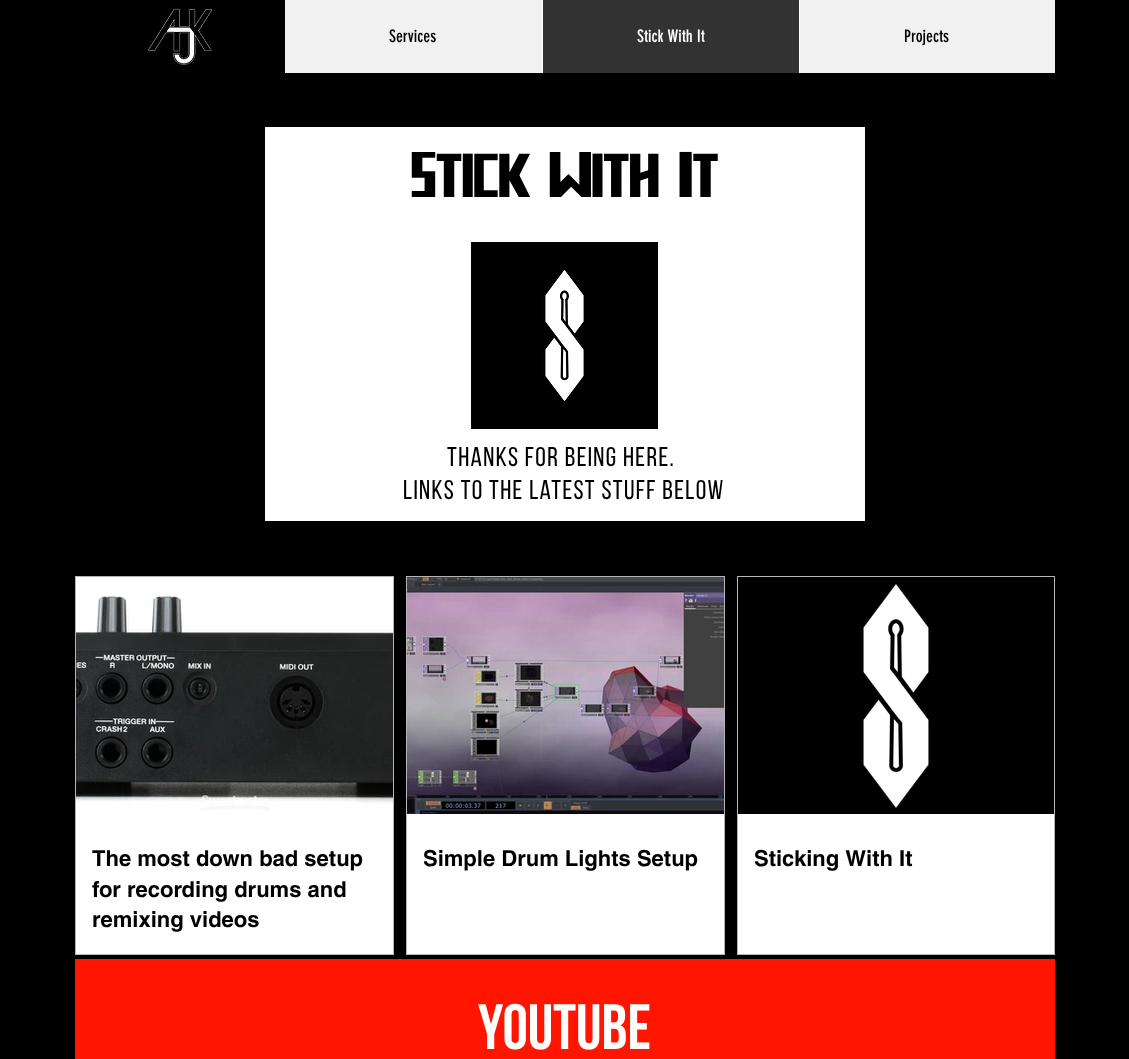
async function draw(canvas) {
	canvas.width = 1129;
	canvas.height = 1059;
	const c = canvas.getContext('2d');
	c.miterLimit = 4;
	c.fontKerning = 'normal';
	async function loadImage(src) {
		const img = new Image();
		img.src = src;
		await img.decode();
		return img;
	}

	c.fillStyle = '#000';
	c.fillRect(0, 0, 1129, 1059);
	c.drawImage(await loadImage('img1.png'), 148, 8, 64, 57);
	c.fillStyle = '#f1f1f1';
	c.fillRect(285, 0, 770, 73);
	c.font = '17px "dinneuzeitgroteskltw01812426"';
	c.fillStyle = '#000';
	c.fillText('Services', 389, 42);
	c.fillStyle = '#323232';
	c.fillRect(543, 0, 256, 73);
	c.fillStyle = '#fff';
	c.fillRect(542, 0, 1, 73);
	c.fillText('Stick With It', 637, 42);
	c.fillRect(799, 0, 1, 73);
	c.fillStyle = '#000';
	c.fillText('Projects', 904, 42);
	c.fillStyle = '#fff';
	c.fillRect(265, 127, 600, 394);
	c.font = '78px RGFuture';
	c.fillStyle = '#000';
	c.fillText('Stick With It', 411, 197);
	c.drawImage(await loadImage('img2.png'), 471, 242, 187, 187);
	c.letterSpacing = '1.35px';
	c.font = '27px Bebas Neue';
	c.fillText('Thanks for being here.', 447, 466);
	c.fillText('Links to the latest stuff below', 403, 499);
	c.strokeStyle = '#b6b6b6';
	c.strokeRect(75.5, 576.5, 318, 378);
	c.drawImage(await loadImage('img3.png'), 76, 577, 317, 237);
	c.fillStyle = '#fff';
	c.fillRect(76, 814, 317, 140);
	c.save();
	c.beginPath();
	c.rect(92, 843, 285, 89);
	c.clip();
	c.letterSpacing = '0px';
	c.font = 'bold 22px helvetica';
	c.fillStyle = '#000';
	c.fillText('The most down bad setup', 92, 866);
	c.fillText('for recording drums and', 92, 897);
	c.restore();
	c.letterSpacing = '0px';
	c.font = 'bold 22px helvetica';
	c.fillStyle = '#000';
	c.fillText('remixing videos', 92, 927);
	c.strokeRect(406.5, 576.5, 318, 378);
	c.drawImage(await loadImage('img4.png'), 407, 577, 317, 237);
	c.fillStyle = '#fff';
	c.fillRect(407, 814, 317, 140);
	c.fillStyle = '#000';
	c.fillText('Simple Drum Lights Setup', 423, 866);
	c.strokeRect(737.5, 576.5, 317, 378);
	c.drawImage(await loadImage('img5.png'), 820, 577, 152, 237);
	c.fillStyle = '#fff';
	c.fillRect(738, 814, 316, 140);
	c.fillStyle = '#000';
	c.fillText('Sticking With It', 754, 866);
	c.fillStyle = '#ff1500';
	c.fillRect(75, 959, 980, 100);
	c.font = 'bold 64px Bebas Neue';
	c.fillStyle = '#fff';
	c.fillText('Youtube', 478, 1049);
}

draw(document.querySelector('canvas'));
